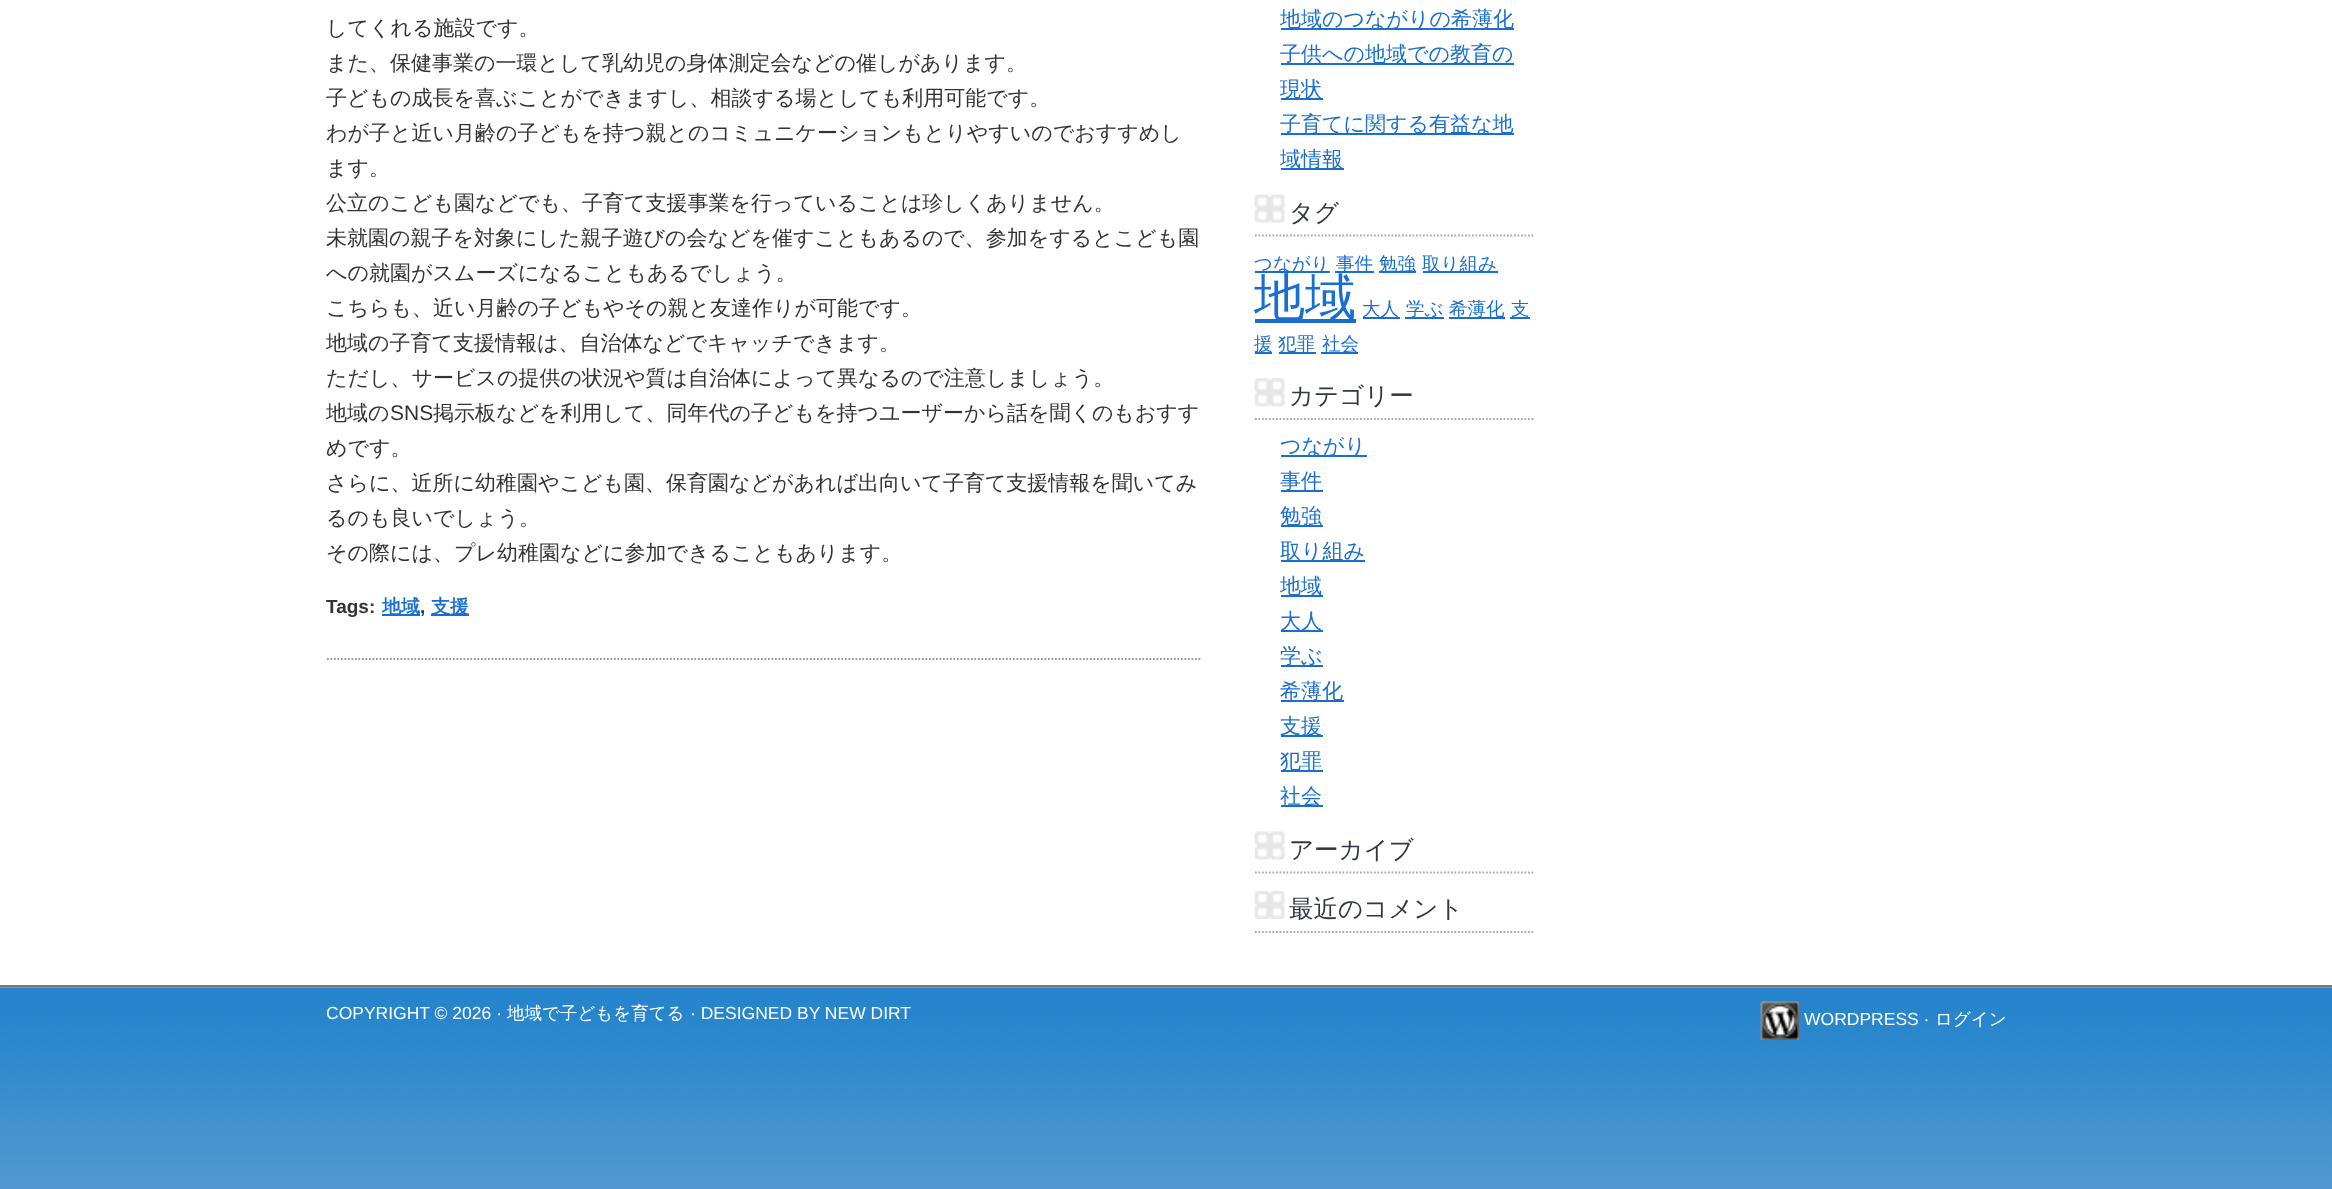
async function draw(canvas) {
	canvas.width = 2332;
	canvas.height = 1189;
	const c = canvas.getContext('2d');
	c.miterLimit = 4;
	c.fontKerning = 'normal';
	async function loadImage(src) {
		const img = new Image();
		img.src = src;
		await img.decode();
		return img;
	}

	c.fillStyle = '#fff';
	c.fillRect(0, 0, 2332, 1189);
	c.font = '500 21px WenQuanYi Zen Hei';
	c.fillStyle = '#333';
	for (const [text, x, y] of [
		['してくれる施設です。', 326, 35],
		['また、保健事業の一環として乳幼児の身体測定会などの催しがあります。', 326, 70],
		['子どもの成長を喜ぶことができますし、相談する場としても利用可能です。', 326, 105],
		['わが子と近い月齢の子どもを持つ親とのコミュニケーションもとりやすいのでおすすめし', 326, 140],
		['ます。', 326, 175],
		['公立のこども園などでも、子育て支援事業を行っていることは珍しくありません。', 326, 210],
		['未就園の親子を対象にした親子遊びの会などを催すこともあるので、参加をするとこども園', 326, 245],
		['への就園がスムーズになることもあるでしょう。', 326, 280],
		['こちらも、近い月齢の子どもやその親と友達作りが可能です。', 326, 315],
		['地域の子育て支援情報は、自治体などでキャッチできます。', 326, 350],
		['ただし、サービスの提供の状況や質は自治体によって異なるので注意しましょう。', 326, 385],
		['地域の', 326, 420],
	]) {
		c.fillText(text, x, y);
	}
	c.font = '21px Liberation Sans';
	c.fillText('SNS', 390, 420);
	c.font = '500 21px WenQuanYi Zen Hei';
	for (const [text, x, y] of [
		['掲示板などを利用して、同年代の子どもを持つユーザーから話を聞くのもおすす', 433, 420],
		['めです。', 326, 455],
		['さらに、近所に幼稚園やこども園、保育園などがあれば出向いて子育て支援情報を聞いてみ', 326, 490],
		['るのも良いでしょう。', 326, 525],
		['その際には、プレ幼稚園などに参加できることもあります。', 326, 560],
	]) {
		c.fillText(text, x, y);
	}
	c.beginPath();
	c.moveTo(327, 659);
	c.lineTo(1202, 659);
	c.strokeStyle = '#999';
	c.lineWidth = 1.8;
	c.setLineDash([1.75, 1.75]);
	c.stroke();
	c.font = 'bold 19px Liberation Sans';
	c.fillText('Tags:', 326, 613);
	c.fillStyle = '#186fd0';
	c.fillRect(382, 614, 38, 2);
	c.font = 'bold 19px WenQuanYi Zen Hei';
	c.fillText('地域', 382, 613);
	c.font = 'bold 19px Liberation Sans';
	c.fillStyle = '#333';
	c.fillText(',', 420, 613);
	c.fillStyle = '#186fd0';
	c.fillRect(431, 614, 38, 2);
	c.font = 'bold 19px WenQuanYi Zen Hei';
	c.fillText('支援', 431, 613);
	c.fillRect(1281, 28, 233, 2);
	c.font = '500 21px WenQuanYi Zen Hei';
	c.fillText('地域のつながりの希薄化', 1280, 26);
	c.fillRect(1281, 63, 233, 2);
	c.fillText('子供への地域での教育の', 1280, 61);
	c.fillRect(1281, 98, 42, 2);
	c.fillText('現状', 1280, 96);
	c.fillRect(1281, 133, 233, 2);
	c.fillText('子育てに関する有益な地', 1280, 131);
	c.fillRect(1281, 168, 63, 2);
	c.fillText('域情報', 1280, 166);
	c.drawImage(await loadImage('img1.png'), 1254, 194, 31, 29);
	c.beginPath();
	c.moveTo(1255, 235.5);
	c.lineTo(1535, 235.5);
	c.strokeStyle = '#aaa';
	c.stroke();
	c.font = '500 24.5px WenQuanYi Zen Hei';
	c.fillStyle = '#323740';
	c.fillText('タグ', 1289, 221);
	c.fillStyle = '#186fd0';
	c.fillRect(1255, 271, 75, 2);
	c.font = '500 18.5px WenQuanYi Zen Hei';
	c.fillText('つながり', 1254, 270);
	c.fillRect(1335, 271, 39, 2);
	c.fillText('事件', 1336, 270);
	c.fillRect(1379, 271, 37, 2);
	c.fillText('勉強', 1379, 270);
	c.fillRect(1423, 271, 75, 2);
	c.fillText('取り組み', 1422, 270);
	c.fillRect(1255, 319, 101, 4);
	c.font = '500 51px WenQuanYi Zen Hei';
	c.fillText('地域', 1254, 315);
	c.fillRect(1363, 317, 37, 2);
	c.font = '500 18.5px WenQuanYi Zen Hei';
	c.fillText('大人', 1362, 315);
	c.fillRect(1405, 317, 39, 2);
	c.fillText('学ぶ', 1406, 315);
	c.fillRect(1449, 317, 56, 2);
	c.fillText('希薄化', 1449, 315);
	c.fillRect(1510, 317, 20, 2);
	c.fillText('支', 1511, 315);
	c.fillRect(1255, 352, 17, 2);
	c.fillText('援', 1254, 350);
	c.fillRect(1279, 352, 37, 2);
	c.fillText('犯罪', 1278, 350);
	c.fillRect(1321, 352, 37, 2);
	c.fillText('社会', 1322, 350);
	c.drawImage(await loadImage('img2.png'), 1254, 378, 31, 29);
	c.beginPath();
	c.moveTo(1255, 419);
	c.lineTo(1535, 419);
	c.stroke();
	c.font = '500 24.5px WenQuanYi Zen Hei';
	c.fillStyle = '#323740';
	c.fillText('カテゴリー', 1289, 404);
	c.fillStyle = '#186fd0';
	c.fillRect(1281, 455, 86, 2);
	c.font = '500 21px WenQuanYi Zen Hei';
	c.fillText('つながり', 1280, 453);
	c.fillRect(1281, 490, 42, 2);
	c.fillText('事件', 1280, 488);
	c.fillRect(1281, 525, 42, 2);
	c.fillText('勉強', 1280, 523);
	c.fillRect(1281, 560, 84, 2);
	c.fillText('取り組み', 1280, 558);
	c.fillRect(1281, 595, 42, 2);
	c.fillText('地域', 1280, 593);
	c.fillRect(1281, 630, 42, 2);
	c.fillText('大人', 1280, 628);
	c.fillRect(1281, 665, 42, 2);
	c.fillText('学ぶ', 1280, 663);
	c.fillRect(1281, 700, 63, 2);
	c.fillText('希薄化', 1280, 698);
	c.fillRect(1281, 735, 42, 2);
	c.fillText('支援', 1280, 733);
	c.fillRect(1281, 770, 42, 2);
	c.fillText('犯罪', 1280, 768);
	c.fillRect(1281, 805, 42, 2);
	c.fillText('社会', 1280, 803);
	c.drawImage(await loadImage('img1.png'), 1254, 831, 31, 29);
	c.beginPath();
	c.moveTo(1255, 872.5);
	c.lineTo(1535, 872.5);
	c.stroke();
	c.font = '500 24.5px WenQuanYi Zen Hei';
	c.fillStyle = '#323740';
	c.fillText('アーカイブ', 1289, 858);
	c.drawImage(await loadImage('img3.png'), 1254, 891, 31, 28);
	c.beginPath();
	c.moveTo(1255, 932);
	c.lineTo(1535, 932);
	c.stroke();
	c.fillText('最近のコメント', 1289, 917);
	c.drawImage(await loadImage('img4.png'), 0, 987, 2332, 202);
	c.fillStyle = '#777';
	c.fillRect(0, 985, 2332, 2);
	c.font = '17.5px Liberation Sans';
	c.fillStyle = '#fff';
	c.fillText('COPYRIGHT © 2026 ·', 326, 1019);
	c.font = '500 17.5px WenQuanYi Zen Hei';
	c.fillText('地域で子どもを育てる', 507, 1019);
	c.font = '17.5px Liberation Sans';
	c.fillText('· DESIGNED BY NEW DIRT', 690, 1019);
	c.drawImage(await loadImage('img5.png'), 1760, 1001, 39, 39);
	c.fillText('WORDPRESS ·', 1804, 1025);
	c.font = '500 17.5px WenQuanYi Zen Hei';
	c.fillText('ログイン', 1935, 1025);
}

draw(document.querySelector('canvas'));
